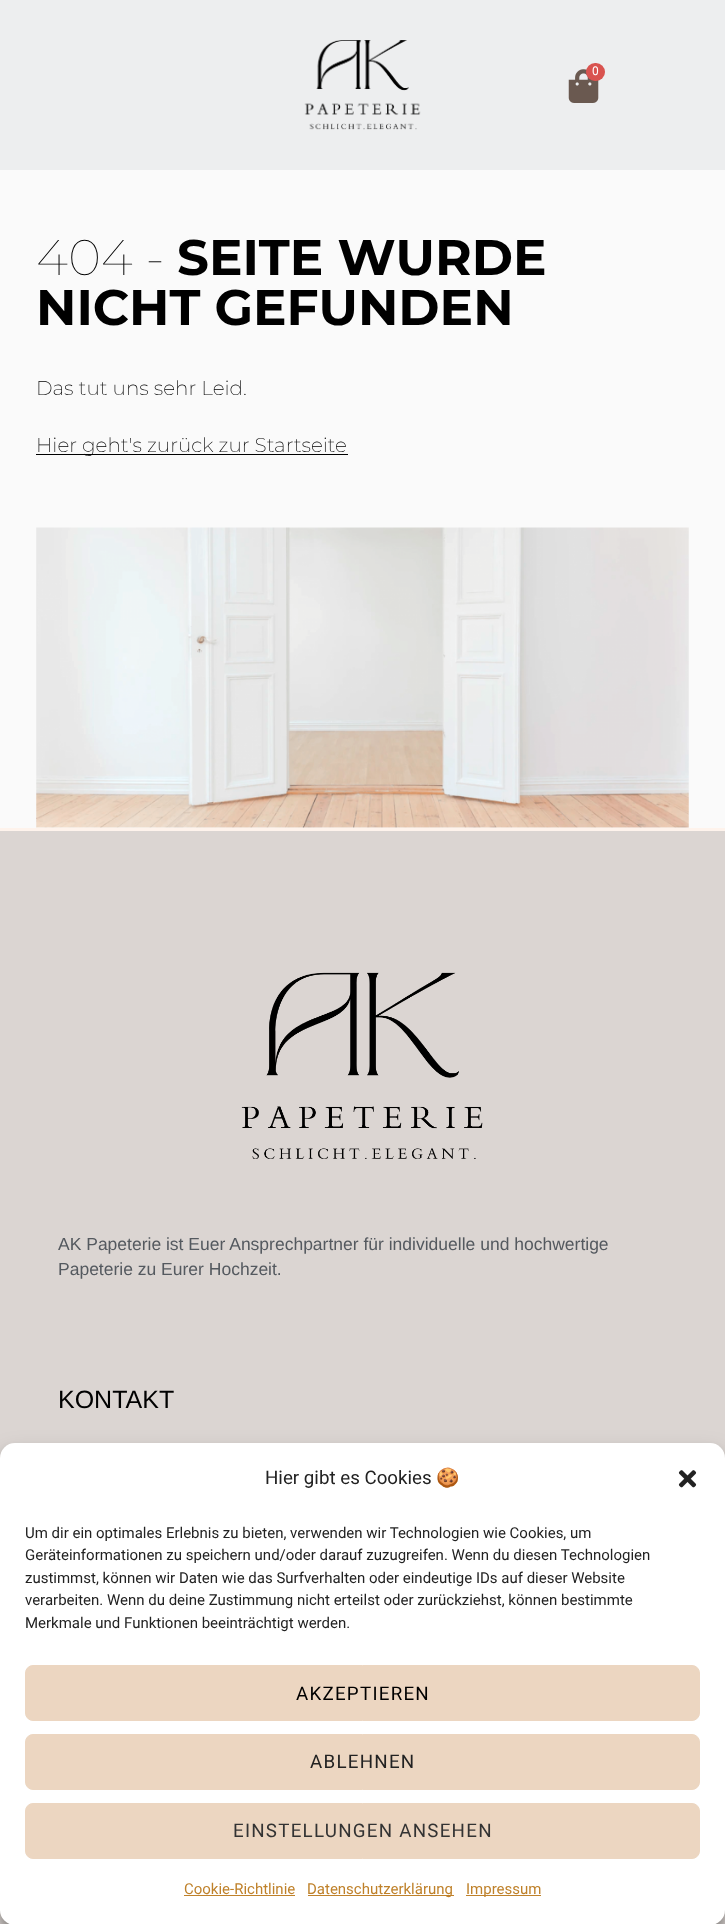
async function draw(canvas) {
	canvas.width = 725;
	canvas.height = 1924;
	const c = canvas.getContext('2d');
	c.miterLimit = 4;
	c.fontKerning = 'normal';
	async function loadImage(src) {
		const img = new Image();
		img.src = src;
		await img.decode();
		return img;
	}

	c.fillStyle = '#fafafa';
	c.fillRect(0, 0, 725, 1924);
	c.fillStyle = '#edeeef';
	c.fillRect(0, 0, 725, 170);
	c.drawImage(await loadImage('img1.png'), 304, 40, 117, 90);
	c.drawImage(await loadImage('img2.png'), 568, 69, 31, 34);
	c.fillStyle = '#d9534f';
	c.beginPath();
	c.roundRect(586, 63, 19, 18, 9);
	c.fill();
	c.font = '12px Roboto';
	c.fillStyle = '#fff';
	c.fillText('0', 592, 75);
	c.font = '100 50px Montserrat';
	c.fillStyle = '#000';
	c.fillText('404 -', 36, 275);
	c.font = 'bold 50px Montserrat';
	c.fillText('SEITE WURDE', 177, 275);
	c.fillText('NICHT GEFUNDEN', 36, 325);
	c.font = '200 20px Montserrat';
	c.fillText('Das tut uns sehr Leid.', 36, 395);
	c.fillRect(36, 454, 312, 1);
	c.fillText('Hier geht\'s zurück zur Startseite', 36, 452);
	c.drawImage(await loadImage('img3.png'), 36, 527, 653, 301);
	c.fillStyle = '#dbd5d2';
	c.fillRect(0, 831, 725, 1093);
	c.fillStyle = '#fef3ec';
	c.fillRect(0, 828, 725, 3);
	c.drawImage(await loadImage('img4.png'), 241, 972, 242, 187);
	c.font = '17.5px Liberation Sans';
	c.fillStyle = '#54595f';
	c.fillText('AK Papeterie ist Euer Ansprechpartner für individuelle und hochwertige', 58, 1250);
	c.fillText('Papeterie zu Eurer Hochzeit.', 58, 1275);
	c.font = '25px Liberation Sans';
	c.fillStyle = '#000';
	c.fillText('KONTAKT', 58, 1408);
	c.fillStyle = '#0000003b';
	c.filter = 'blur(4px)';
	c.beginPath();
	c.roundRect(0, 1450, 725, 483, 15);
	c.fill();
	c.filter = 'none';
	c.fillStyle = '#00000030';
	c.filter = 'blur(12.5px)';
	c.beginPath();
	c.roundRect(0, 1455, 725, 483, 15);
	c.fill();
	c.filter = 'none';
	c.fillStyle = '#fff';
	c.beginPath();
	c.roundRect(0, 1443, 725, 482, 15);
	c.fill();
	c.font = '18.75px Roboto';
	c.fillStyle = '#222';
	c.fillText('Hier gibt es Cookies', 265, 1484);
	c.font = '18.75px Noto Color Emoji';
	c.fillText('🍪', 436, 1484);
	c.drawImage(await loadImage('img5.png'), 678, 1470, 19, 18);
	c.font = '15px Roboto';
	for (const [text, x, y] of [
		['Um dir ein optimales Erlebnis zu bieten, verwenden wir Technologien wie Cookies, um', 25, 1538],
		['Geräteinformationen zu speichern und/oder darauf zuzugreifen. Wenn du diesen Technologien', 25, 1560],
		['zustimmst, können wir Daten wie das Surfverhalten oder eindeutige IDs auf dieser Website', 25, 1583],
		['verarbeiten. Wenn du deine Zustimmung nicht erteilst oder zurückziehst, können bestimmte', 25, 1605],
		['Merkmale und Funktionen beeinträchtigt werden.', 25, 1628],
	]) {
		c.fillText(text, x, y);
	}
	c.fillStyle = '#ecd6c1';
	c.beginPath();
	c.roundRect(25.5, 1665.5, 674, 55, 7.5);
	c.fill();
	c.strokeStyle = '#ecd6c1';
	c.stroke();
	c.letterSpacing = '1.25px';
	c.font = '18.75px Roboto';
	c.fillStyle = '#000';
	c.fillText('AKZEPTIEREN', 296, 1700);
	c.fillStyle = '#ecd6c1';
	c.beginPath();
	c.roundRect(25.5, 1734.5, 674, 55, 7.5);
	c.fill();
	c.stroke();
	c.fillStyle = '#222';
	c.fillText('ABLEHNEN', 310, 1768);
	c.fillStyle = '#ecd6c1';
	c.beginPath();
	c.roundRect(25.5, 1803.5, 674, 55, 7.5);
	c.fill();
	c.stroke();
	c.fillStyle = '#333';
	c.fillText('EINSTELLUNGEN ANSEHEN', 233, 1837);
	c.letterSpacing = '0px';
	c.font = '15px Roboto';
	c.fillStyle = '#bf812a';
	c.fillText('Cookie-Richtlinie', 184, 1894);
	c.fillRect(184, 1895, 111, 1);
	c.fillRect(308, 1895, 146, 1);
	c.fillText('Datenschutzerklärung', 307, 1894);
	c.fillRect(466, 1895, 75, 1);
	c.fillText('Impressum', 466, 1894);
}

draw(document.querySelector('canvas'));
